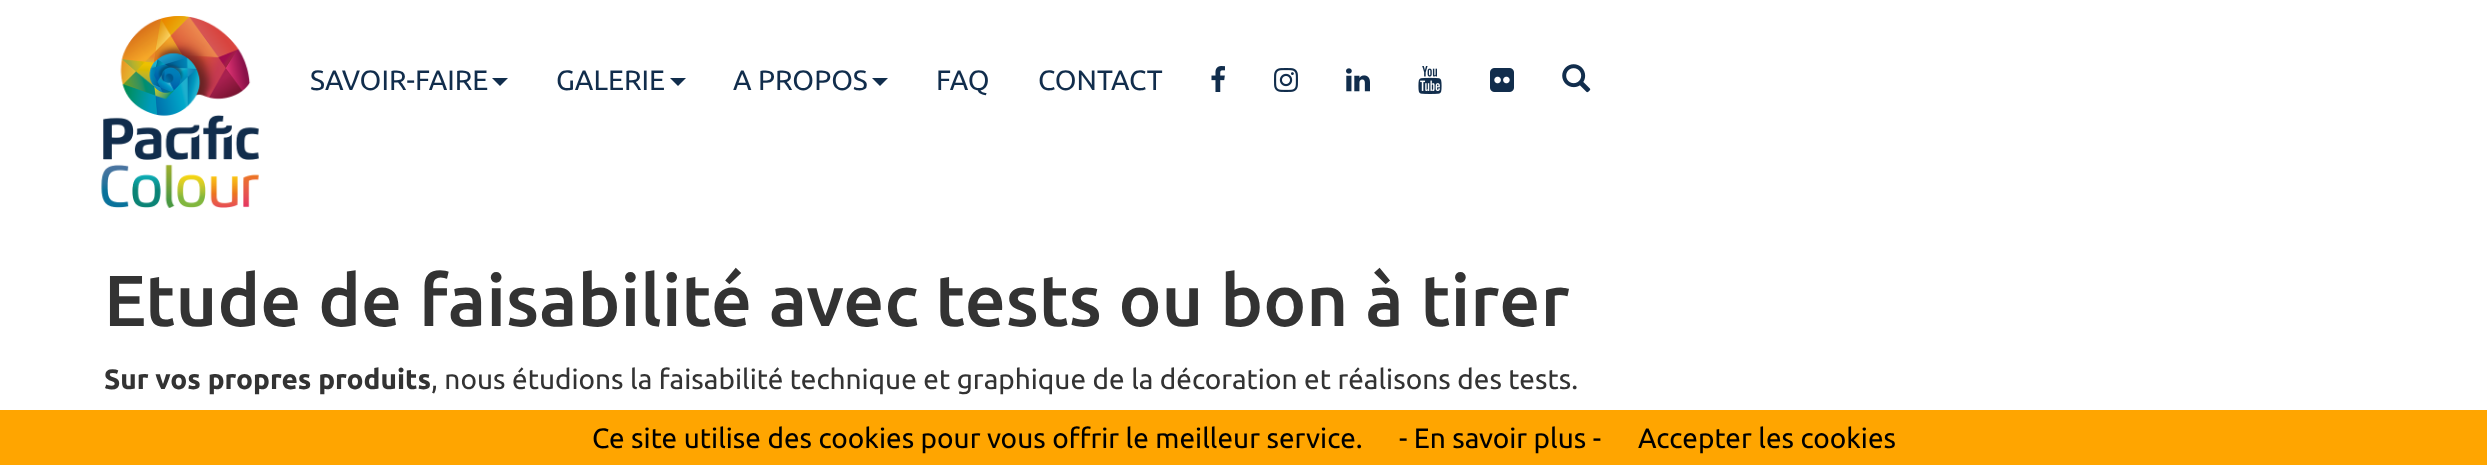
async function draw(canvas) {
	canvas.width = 2487;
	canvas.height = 465;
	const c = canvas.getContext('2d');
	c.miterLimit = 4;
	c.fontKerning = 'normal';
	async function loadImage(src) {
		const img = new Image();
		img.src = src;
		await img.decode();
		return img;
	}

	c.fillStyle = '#fff';
	c.fillRect(0, 0, 2487, 465);
	c.drawImage(await loadImage('img1.png'), 101, 16, 158, 192);
	c.font = '28px Ubuntu';
	c.fillStyle = '#112d4c';
	c.fillText('SAVOIR-FAIRE', 310, 90);
	c.beginPath();
	c.moveTo(492, 78);
	c.lineTo(508, 78);
	c.lineTo(500, 86);
	c.closePath();
	c.fill();
	c.fillText('GALERIE', 556, 90);
	c.beginPath();
	c.moveTo(670, 78);
	c.lineTo(686, 78);
	c.lineTo(678, 86);
	c.closePath();
	c.fill();
	c.fillText('A PROPOS', 733, 90);
	c.beginPath();
	c.moveTo(872, 78);
	c.lineTo(888, 78);
	c.lineTo(880, 86);
	c.closePath();
	c.fill();
	c.fillText('FAQ', 936, 90);
	c.fillText('CONTACT', 1038, 90);
	c.drawImage(await loadImage('img2.png'), 1211, 66, 14, 26);
	c.drawImage(await loadImage('img3.png'), 1274, 68, 24, 24);
	c.drawImage(await loadImage('img4.png'), 1346, 68, 24, 24);
	c.drawImage(await loadImage('img5.png'), 1418, 66, 24, 28);
	c.drawImage(await loadImage('img6.png'), 1490, 68, 24, 24);
	c.drawImage(await loadImage('img7.png'), 1562, 64, 29, 29);
	c.font = '500 72px Ubuntu';
	c.fillStyle = '#333';
	c.fillText('Etude de faisabilité avec tests ou bon à tirer', 104, 326);
	c.font = 'bold 28px Ubuntu';
	c.fillText('Sur vos propres produits', 104, 389);
	c.font = '28px Ubuntu';
	c.fillText(', nous étudions la faisabilité technique et graphique de la décoration et réalisons des tests.', 431, 389);
	c.fillStyle = '#ffa500';
	c.fillRect(0, 410, 2487, 55);
	c.fillStyle = '#000';
	for (const [text, x, y] of [
		['Ce site utilise des cookies pour vous offrir le meilleur service.', 592, 448],
		['- En savoir plus -', 1399, 448],
		['Accepter les cookies', 1638, 448],
	]) {
		c.fillText(text, x, y);
	}
}

draw(document.querySelector('canvas'));
